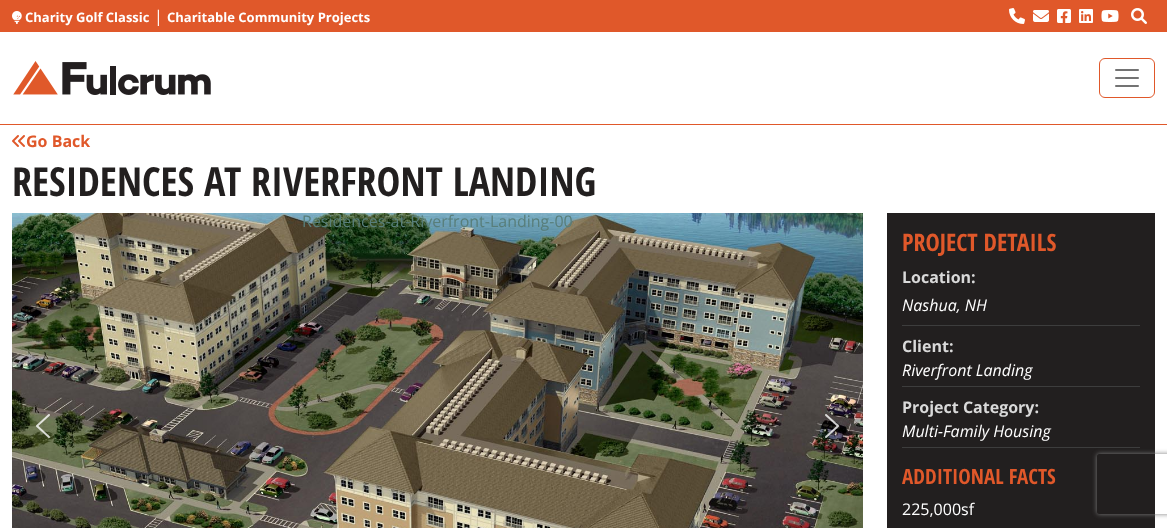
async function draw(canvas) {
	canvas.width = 1167;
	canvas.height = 528;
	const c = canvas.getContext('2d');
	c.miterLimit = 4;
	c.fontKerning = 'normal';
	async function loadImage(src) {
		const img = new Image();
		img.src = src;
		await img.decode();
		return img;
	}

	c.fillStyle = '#fff';
	c.fillRect(0, 0, 1167, 528);
	c.fillStyle = '#e0582a';
	c.fillRect(0, 124, 1167, 1);
	c.fillRect(0, 0, 1167, 32);
	c.drawImage(await loadImage('img1.png'), 12, 11, 10, 13);
	c.font = 'bold 13px Open Sans';
	c.fillStyle = '#fff';
	c.fillText('Charity Golf Classic', 25, 22);
	c.font = '16px Open Sans';
	c.fillText('|', 154, 22);
	c.font = 'bold 13px Open Sans';
	c.fillText('Charitable Community Projects', 167, 22);
	c.drawImage(await loadImage('img2.png'), 1009, 8, 16, 16);
	c.drawImage(await loadImage('img3.png'), 1033, 10, 16, 12);
	c.drawImage(await loadImage('img4.png'), 1057, 9, 14, 14);
	c.drawImage(await loadImage('img5.png'), 1079, 9, 14, 14);
	c.drawImage(await loadImage('img6.png'), 1101, 10, 18, 12);
	c.drawImage(await loadImage('img7.png'), 1131, 8, 16, 16);
	c.drawImage(await loadImage('img8.png'), 13, 61, 198, 34);
	c.beginPath();
	c.roundRect(1099.5, 58.5, 55, 39, 5.5);
	c.strokeStyle = '#e0582a';
	c.stroke();
	c.drawImage(await loadImage('img9.png'), 1115, 69, 24, 18);
	c.drawImage(await loadImage('img10.png'), 12, 135, 13, 12);
	c.font = 'bold 16px Open Sans';
	c.fillStyle = '#e0582a';
	c.fillText('Go Back', 26, 147);
	c.font = 'bold 40px Open Sans Condensed';
	c.fillStyle = '#221f1f';
	c.fillText('RESIDENCES AT RIVERFRONT LANDING', 12, 196);
	c.drawImage(await loadImage('img11.png'), 12, 213, 851, 315);
	c.font = '16px Open Sans';
	c.fillStyle = '#587e7a';
	c.fillText('Residences-at-Riverfront-Landing-00', 302, 227);
	c.drawImage(await loadImage('img12.png'), 36, 414, 14, 24);
	c.drawImage(await loadImage('img13.png'), 825, 414, 14, 24);
	c.fillStyle = '#221f1f';
	c.fillRect(887, 213, 268, 315);
	c.font = 'bold 24px Open Sans Condensed';
	c.fillStyle = '#e0582a';
	c.fillText('PROJECT DETAILS', 902, 251);
	c.fillStyle = '#3d3d3d';
	c.fillRect(902, 325, 238, 1);
	c.font = 'bold 16px Open Sans';
	c.fillStyle = '#d9d9d9';
	c.fillText('Location:', 902, 283);
	c.font = 'italic 16px Open Sans';
	c.fillStyle = '#fff';
	c.fillText('Nashua, NH', 902, 311);
	c.fillStyle = '#3d3d3d';
	c.fillRect(902, 386, 238, 1);
	c.font = 'bold 16px Open Sans';
	c.fillStyle = '#d9d9d9';
	c.fillText('Client:', 902, 352);
	c.font = 'italic 16px Open Sans';
	c.fillStyle = '#fff';
	c.fillText('Riverfront Landing', 902, 376);
	c.fillStyle = '#3d3d3d';
	c.fillRect(902, 447, 238, 1);
	c.font = 'bold 16px Open Sans';
	c.fillStyle = '#d9d9d9';
	c.fillText('Project Category:', 902, 413);
	c.font = 'italic 16px Open Sans';
	c.fillStyle = '#fff';
	c.fillText('Multi-Family Housing', 902, 437);
	c.font = 'bold 21px Open Sans Condensed';
	c.fillStyle = '#e0582a';
	c.fillText('ADDITIONAL FACTS', 902, 484);
	c.font = '16px Open Sans';
	c.fillStyle = '#fff';
	c.fillText('225,000sf', 902, 515);
	c.save();
	c.beginPath();
	c.moveTo(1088, 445);
	c.lineTo(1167, 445);
	c.lineTo(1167, 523);
	c.lineTo(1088, 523);
	c.closePath();
	c.moveTo(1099, 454);
	c.lineTo(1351, 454);
	c.bezierCurveTo(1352, 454, 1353, 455, 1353, 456);
	c.lineTo(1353, 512);
	c.bezierCurveTo(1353, 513, 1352, 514, 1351, 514);
	c.lineTo(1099, 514);
	c.bezierCurveTo(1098, 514, 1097, 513, 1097, 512);
	c.lineTo(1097, 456);
	c.bezierCurveTo(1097, 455, 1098, 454, 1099, 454);
	c.closePath();
	c.clip('evenodd');
	c.fillStyle = '#808080';
	c.filter = 'blur(2.5px)';
	c.beginPath();
	c.roundRect(1097, 454, 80, 60, 2);
	c.fill();
	c.filter = 'none';
	c.restore();
}

draw(document.querySelector('canvas'));
